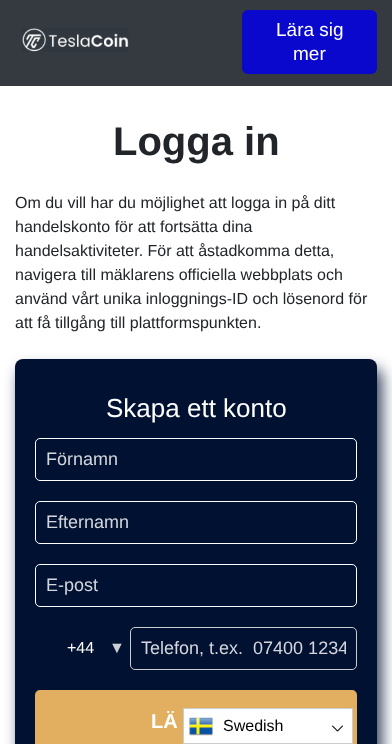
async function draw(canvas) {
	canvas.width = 392;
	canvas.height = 744;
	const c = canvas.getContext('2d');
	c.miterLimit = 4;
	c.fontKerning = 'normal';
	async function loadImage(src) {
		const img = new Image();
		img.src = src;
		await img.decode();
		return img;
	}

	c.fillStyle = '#fff';
	c.fillRect(0, 0, 392, 744);
	c.fillStyle = '#343a40';
	c.fillRect(0, 0, 392, 86);
	c.drawImage(await loadImage('img1.png'), 22, 28, 107, 24);
	c.fillStyle = '#0908cc';
	c.beginPath();
	c.roundRect(242, 10, 135, 64, 6);
	c.fill();
	c.font = '19px Liberation Sans';
	c.fillStyle = '#fff';
	c.fillText('Lära sig', 276, 36);
	c.fillText('mer', 293, 60);
	c.font = 'bold 40px Liberation Sans';
	c.fillStyle = '#212529';
	c.fillText('Logga in', 113, 155);
	c.font = '16px Liberation Sans';
	for (const [text, x, y] of [
		['Om du vill har du möjlighet att logga in på ditt', 15, 208],
		['handelskonto för att fortsätta dina', 15, 232],
		['handelsaktiviteter. För att åstadkomma detta,', 15, 256],
		['navigera till mäklarens officiella webbplats och', 15, 280],
		['använd vårt unika inloggnings-ID och lösenord för', 15, 304],
		['att få tillgång till plattformspunkten.', 15, 328],
	]) {
		c.fillText(text, x, y);
	}
	c.fillStyle = '#001132cc';
	c.filter = 'blur(7.5px)';
	c.beginPath();
	c.roundRect(20, 369, 362, 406, 8);
	c.fill();
	c.filter = 'none';
	c.fillStyle = '#001132';
	c.beginPath();
	c.roundRect(15, 359, 362, 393, 8);
	c.fill();
	c.font = '26px Liberation Sans';
	c.fillStyle = '#fff';
	c.fillText('Skapa ett konto', 106, 417);
	c.beginPath();
	c.roundRect(35.5, 438.5, 321, 42, 4.5);
	c.strokeStyle = '#fff';
	c.stroke();
	c.font = '18px Liberation Sans';
	c.fillStyle = '#d4d6dc';
	c.fillText('Förnamn', 46, 465);
	c.beginPath();
	c.roundRect(35.5, 501.5, 321, 42, 4.5);
	c.stroke();
	c.fillText('Efternamn', 46, 528);
	c.beginPath();
	c.roundRect(35.5, 564.5, 321, 42, 4.5);
	c.stroke();
	c.fillText('E-post', 46, 591);
	c.font = '16px Liberation Sans';
	c.fillStyle = '#fff';
	c.fillText('+44', 67, 653);
	c.fillStyle = '#cccfd6';
	c.fillText('▼', 109, 653);
	c.beginPath();
	c.roundRect(130.5, 627.5, 226, 42, 4.5);
	c.strokeStyle = '#ccc';
	c.stroke();
	c.save();
	c.beginPath();
	c.rect(141, 638, 205, 21);
	c.clip();
	c.font = '18px Liberation Sans';
	c.fillStyle = '#d4d6dc';
	c.fillText('Telefon, t.ex.  07400 1234', 141, 654);
	c.restore();
	c.fillStyle = '#e2ae60';
	c.beginPath();
	c.roundRect(35, 690, 322, 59, 5);
	c.fill();
	c.font = 'bold 20px Liberation Sans';
	c.fillStyle = '#fff';
	c.fillText('LÄ', 151, 728);
	c.beginPath();
	c.rect(183.5, 708.5, 169, 35);
	c.fill();
	c.stroke();
	c.drawImage(await loadImage('img2.png'), 189, 717, 24, 19);
	c.font = '16px Liberation Sans';
	c.fillStyle = '#000';
	c.fillText('Swedish', 223, 731);
	c.drawImage(await loadImage('img3.png'), 332, 725, 11, 7);
}

draw(document.querySelector('canvas'));
